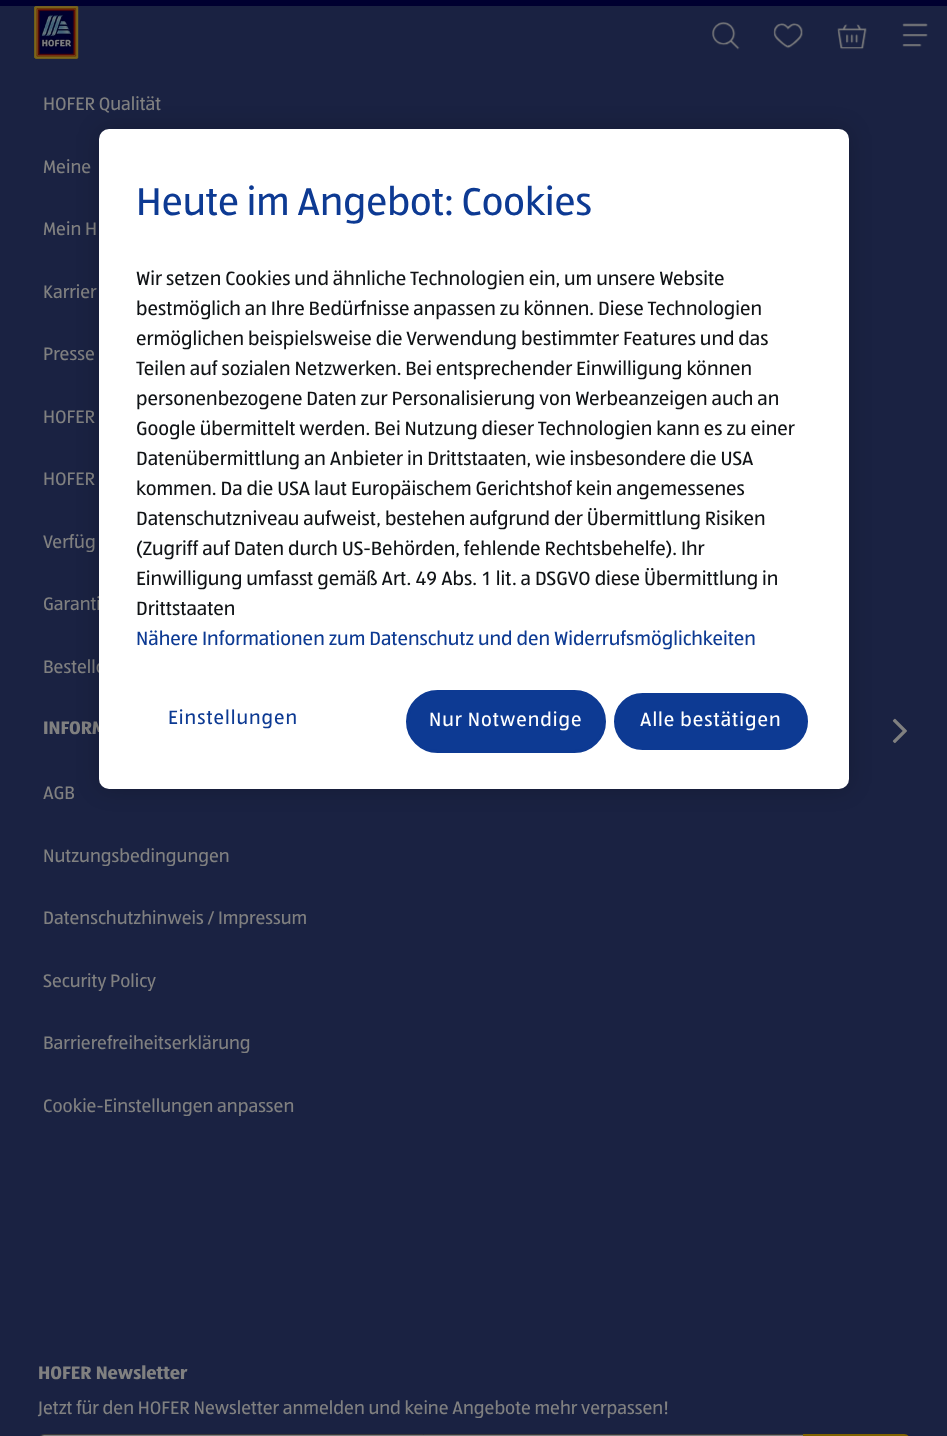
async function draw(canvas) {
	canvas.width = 947;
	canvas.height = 1436;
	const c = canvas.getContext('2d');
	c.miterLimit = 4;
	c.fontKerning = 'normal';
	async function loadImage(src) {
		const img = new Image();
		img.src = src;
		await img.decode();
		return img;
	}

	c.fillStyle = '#1a2242';
	c.fillRect(0, 0, 947, 1436);
	c.fillStyle = '#000030';
	c.fillRect(0, 0, 947, 6);
	c.drawImage(await loadImage('img1.png'), 34, 6, 45, 53);
	c.drawImage(await loadImage('img2.png'), 712, 22, 28, 28);
	c.drawImage(await loadImage('img3.png'), 773, 23, 30, 26);
	c.drawImage(await loadImage('img4.png'), 837, 24, 30, 26);
	c.drawImage(await loadImage('img5.png'), 902, 23, 26, 24);
	c.font = '18.75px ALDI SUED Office';
	c.fillStyle = '#808080';
	for (const [text, x, y] of [
		['HOFER Qualität', 43, 110],
		['Meine', 43, 173],
		['Mein H', 43, 235],
		['Karrier', 43, 298],
		['Presse', 43, 360],
		['HOFER', 43, 423],
		['HOFER', 43, 485],
		['Verfüg', 43, 548],
		['Garanti', 43, 610],
		['Bestellc', 43, 673],
	]) {
		c.fillText(text, x, y);
	}
	c.font = 'bold 18.75px ALDI SUED Office';
	c.fillText('INFORM', 43, 734);
	c.drawImage(await loadImage('img6.png'), 892, 718, 15, 26);
	c.font = '18.75px ALDI SUED Office';
	for (const [text, x, y] of [
		['AGB', 43, 799],
		['Nutzungsbedingungen', 43, 862],
		['Datenschutzhinweis / Impressum', 43, 924],
		['Security Policy', 43, 987],
		['Barrierefreiheitserklärung', 43, 1049],
		['Cookie-Einstellungen anpassen', 43, 1112],
	]) {
		c.fillText(text, x, y);
	}
	c.font = 'bold 18.75px ALDI SUED Office';
	c.fillText('HOFER Newsletter', 38, 1379);
	c.font = '18.75px ALDI SUED Office';
	c.fillText('Jetzt für den HOFER Newsletter anmelden und keine Angebote mehr verpassen!', 38, 1414);
	c.beginPath();
	c.moveTo(44, 1435);
	c.lineTo(803, 1435);
	c.lineTo(803, 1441);
	c.lineTo(44, 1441);
	c.bezierCurveTo(41, 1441, 39, 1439, 39, 1436);
	c.lineTo(39, 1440);
	c.bezierCurveTo(39, 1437, 41, 1435, 44, 1435);
	c.closePath();
	c.fill();
	c.beginPath();
	c.moveTo(44, 1434.5);
	c.lineTo(803.5, 1434.5);
	c.lineTo(803.5, 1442.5);
	c.lineTo(44, 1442.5);
	c.bezierCurveTo(41, 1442.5, 38.5, 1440, 38.5, 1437);
	c.lineTo(38.5, 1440);
	c.bezierCurveTo(38.5, 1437, 41, 1434.5, 44, 1434.5);
	c.closePath();
	c.strokeStyle = '#3a3a3a';
	c.stroke();
	c.fillStyle = '#806400';
	c.beginPath();
	c.moveTo(803, 1434);
	c.lineTo(904, 1434);
	c.bezierCurveTo(907.5, 1434, 910, 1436.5, 910, 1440);
	c.lineTo(910, 1436);
	c.bezierCurveTo(910, 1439.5, 907.5, 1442, 904, 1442);
	c.lineTo(803, 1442);
	c.closePath();
	c.fill();
	c.fillStyle = '#00000033';
	c.filter = 'blur(11px)';
	c.beginPath();
	c.roundRect(99, 129, 750, 660, 10);
	c.fill();
	c.filter = 'none';
	c.fillStyle = '#fff';
	c.beginPath();
	c.roundRect(99, 129, 750, 660, 10);
	c.fill();
	c.font = '40px ALDI SUED Office';
	c.fillStyle = '#0d3a93';
	c.fillText('Heute im Angebot: Cookies', 136, 215);
	c.font = '20px ALDI SUED Office';
	c.fillStyle = '#101316';
	for (const [text, x, y] of [
		['Wir setzen Cookies und ähnliche Technologien ein, um unsere Website', 136, 285],
		['bestmöglich an Ihre Bedürfnisse anpassen zu können. Diese Technologien', 136, 315],
		['ermöglichen beispielsweise die Verwendung bestimmter Features und das', 136, 345],
		['Teilen auf sozialen Netzwerken. Bei entsprechender Einwilligung können', 136, 375],
		['personenbezogene Daten zur Personalisierung von Werbeanzeigen auch an', 136, 405],
		['Google übermittelt werden. Bei Nutzung dieser Technologien kann es zu einer', 136, 435],
		['Datenübermittlung an Anbieter in Drittstaaten, wie insbesondere die USA', 136, 465],
		['kommen. Da die USA laut Europäischem Gerichtshof kein angemessenes', 136, 495],
		['Datenschutzniveau aufweist, bestehen aufgrund der Übermittlung Risiken', 136, 525],
		['(Zugriff auf Daten durch US-Behörden, fehlende Rechtsbehelfe). Ihr', 136, 555],
		['Einwilligung umfasst gemäß Art. 49 Abs. 1 lit. a DSGVO diese Übermittlung in', 136, 585],
		['Drittstaaten', 136, 615],
	]) {
		c.fillText(text, x, y);
	}
	c.fillStyle = '#0d3a93';
	c.fillText('Nähere Informationen zum Datenschutz und den Widerrufsmöglichkeiten', 136, 645);
	c.letterSpacing = '1px';
	c.fillText('Einstellungen', 168, 724);
	c.beginPath();
	c.roundRect(407.5, 691.5, 197, 60, 30);
	c.fill();
	c.strokeStyle = '#0d3a93';
	c.lineWidth = 3;
	c.stroke();
	c.fillStyle = '#fff';
	c.fillText('Nur Notwendige', 429, 726);
	c.fillStyle = '#0d3a93';
	c.beginPath();
	c.roundRect(612.5, 691.5, 197, 60, 30);
	c.fill();
	c.strokeStyle = '#fff';
	c.stroke();
	c.fillStyle = '#fff';
	c.fillText('Alle bestätigen', 640, 726);
}

draw(document.querySelector('canvas'));
